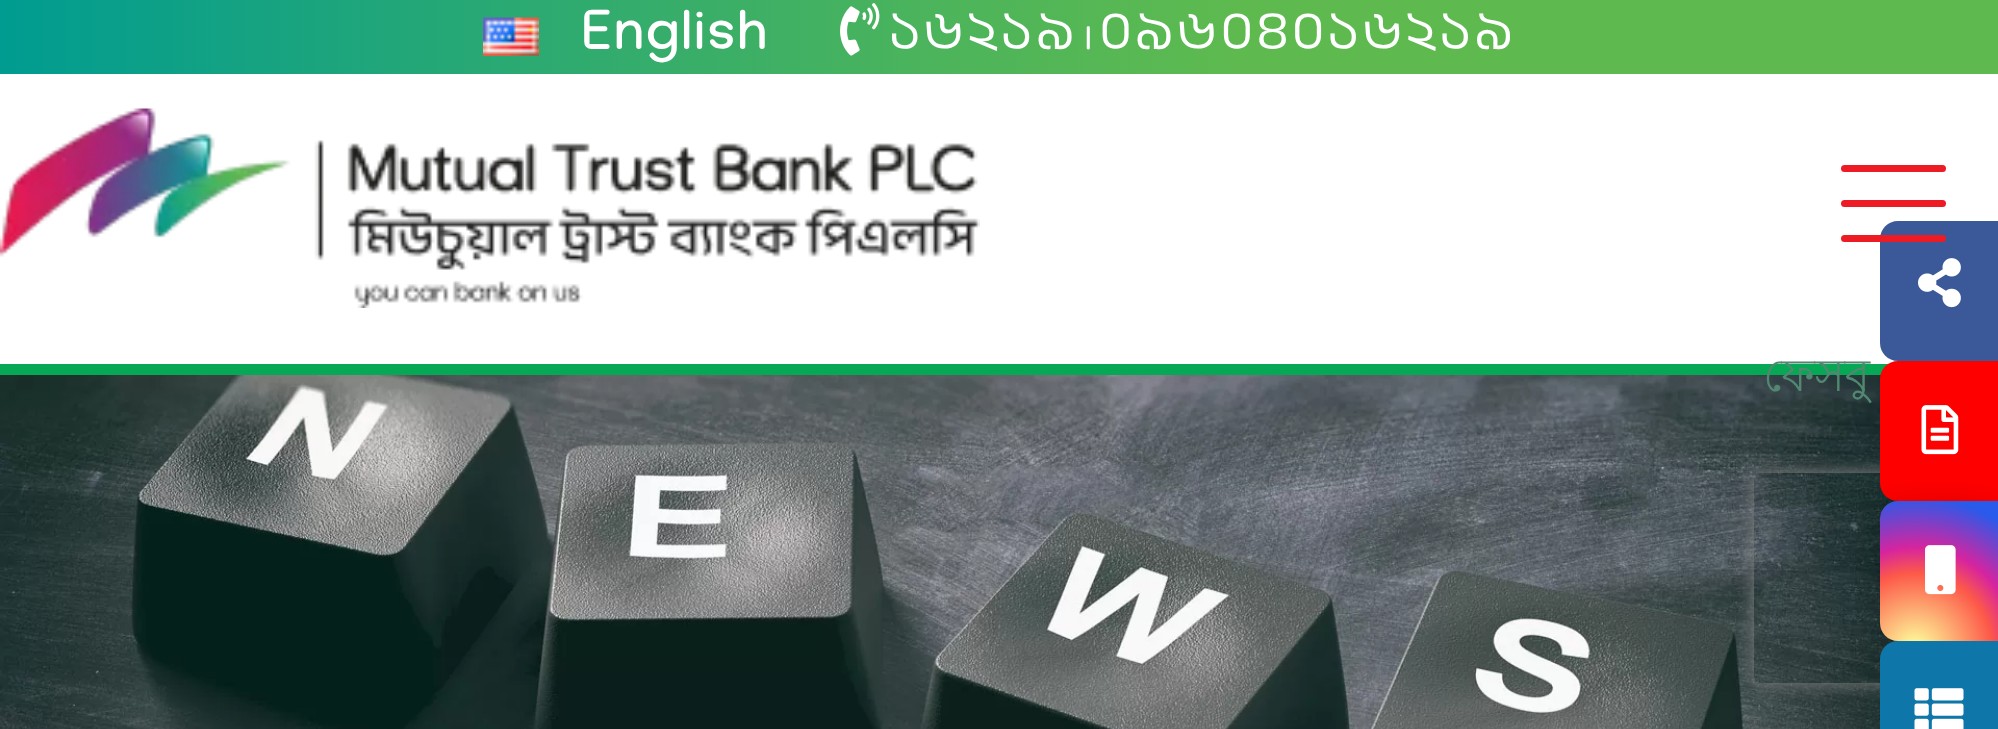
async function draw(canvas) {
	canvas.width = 1998;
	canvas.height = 729;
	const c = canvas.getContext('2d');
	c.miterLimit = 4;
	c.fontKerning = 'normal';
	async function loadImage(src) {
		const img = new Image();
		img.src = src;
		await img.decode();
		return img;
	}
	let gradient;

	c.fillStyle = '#fff';
	c.fillRect(0, 0, 1998, 729);
	c.fillStyle = '#06a855';
	c.fillRect(0, 364, 1888, 11);
	gradient = c.createLinearGradient(0, 37, 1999, 37);
	gradient.addColorStop(0, '#009c91');
	gradient.addColorStop(0.19, '#20a67a');
	gradient.addColorStop(0.47, '#4cb45b');
	gradient.addColorStop(0.62, '#5eba4f');
	c.fillStyle = gradient;
	c.fillRect(0, 0, 1998, 74);
	c.drawImage(await loadImage('img1.png'), 483, 17, 56, 39);
	c.letterSpacing = '2.75px';
	c.font = '56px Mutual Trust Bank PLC';
	c.fillStyle = '#fff';
	c.fillText('English', 582, 49);
	c.drawImage(await loadImage('img2.png'), 840, 3, 40, 53);
	c.font = '56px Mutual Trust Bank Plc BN';
	c.fillText('১৬২১৯', 889, 49);
	c.letterSpacing = '0px';
	c.font = '32px Mutual Trust Bank PLC';
	c.fillText('|', 1086, 49);
	c.letterSpacing = '2.75px';
	c.font = '56px Mutual Trust Bank Plc BN';
	c.fillText('০৯৬০৪০১৬২১৯', 1099, 49);
	c.drawImage(await loadImage('img3.png'), 0, 108, 980, 200);
	c.fillStyle = '#ed1c24';
	c.beginPath();
	c.roundRect(1841, 165, 105, 7, 3.5);
	c.fill();
	c.beginPath();
	c.roundRect(1841, 200, 105, 7, 3.5);
	c.fill();
	c.fillStyle = '#3b5998';
	c.beginPath();
	c.moveTo(1898, 221);
	c.lineTo(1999, 221);
	c.lineTo(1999, 361);
	c.lineTo(1898, 361);
	c.bezierCurveTo(1888, 361, 1880, 353, 1880, 343);
	c.lineTo(1880, 239);
	c.bezierCurveTo(1880, 229, 1888, 221, 1898, 221);
	c.closePath();
	c.fill();
	c.fillStyle = '#ed1c24';
	c.beginPath();
	c.roundRect(1841, 235, 105, 7, 3.5);
	c.fill();
	c.drawImage(await loadImage('img4.png'), 1918, 258, 43, 50);
	c.drawImage(await loadImage('img8.png'), 0, 375, 1898, 354);
	c.letterSpacing = '0px';
	c.font = '45.5px Lohit Bengali';
	c.fillStyle = '#528871';
	c.fillText('ফেসবু', 1763, 391);
	c.save();
	c.beginPath();
	c.moveTo(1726, 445);
	c.lineTo(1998, 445);
	c.lineTo(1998, 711);
	c.lineTo(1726, 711);
	c.closePath();
	c.moveTo(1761, 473);
	c.lineTo(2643, 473);
	c.bezierCurveTo(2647, 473, 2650, 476, 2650, 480);
	c.lineTo(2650, 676);
	c.bezierCurveTo(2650, 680, 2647, 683, 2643, 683);
	c.lineTo(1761, 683);
	c.bezierCurveTo(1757, 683, 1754, 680, 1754, 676);
	c.lineTo(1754, 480);
	c.bezierCurveTo(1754, 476, 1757, 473, 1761, 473);
	c.closePath();
	c.clip('evenodd');
	c.fillStyle = '#808080';
	c.filter = 'blur(9px)';
	c.beginPath();
	c.roundRect(1754, 473, 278, 210, 7);
	c.fill();
	c.filter = 'none';
	c.restore();
	c.fillStyle = '#f00';
	c.beginPath();
	c.moveTo(1898, 361);
	c.lineTo(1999, 361);
	c.lineTo(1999, 501);
	c.lineTo(1898, 501);
	c.bezierCurveTo(1888, 501, 1880, 493, 1880, 483);
	c.lineTo(1880, 379);
	c.bezierCurveTo(1880, 369, 1888, 361, 1898, 361);
	c.closePath();
	c.fill();
	c.drawImage(await loadImage('img5.png'), 1921, 405, 38, 50);
	c.fillStyle = '#00000040';
	c.filter = 'blur(17.5px)';
	c.beginPath();
	c.roundRect(1880, 511, 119, 140, 18);
	c.fill();
	c.filter = 'none';
	gradient = c.createRadialGradient(1915, 650, 0, 1915, 650, 171);
	gradient.addColorStop(0, '#fdf497');
	gradient.addColorStop(0.05, '#fdf497');
	gradient.addColorStop(0.45, '#fd5949');
	gradient.addColorStop(0.6, '#d6249f');
	gradient.addColorStop(0.9, '#285aeb');
	c.fillStyle = gradient;
	c.beginPath();
	c.moveTo(1898, 501);
	c.lineTo(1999, 501);
	c.lineTo(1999, 641);
	c.lineTo(1898, 641);
	c.bezierCurveTo(1888, 641, 1880, 633, 1880, 623);
	c.lineTo(1880, 519);
	c.bezierCurveTo(1880, 509, 1888, 501, 1898, 501);
	c.closePath();
	c.fill();
	c.drawImage(await loadImage('img6.png'), 1925, 545, 31, 50);
	c.fillStyle = '#0e76a8';
	c.beginPath();
	c.moveTo(1898, 641);
	c.lineTo(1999, 641);
	c.lineTo(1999, 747);
	c.lineTo(1898, 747);
	c.bezierCurveTo(1888, 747, 1880, 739, 1880, 729);
	c.lineTo(1880, 659);
	c.bezierCurveTo(1880, 649, 1888, 641, 1898, 641);
	c.closePath();
	c.fill();
	c.drawImage(await loadImage('img7.png'), 1914, 688, 50, 41);
}

draw(document.querySelector('canvas'));
